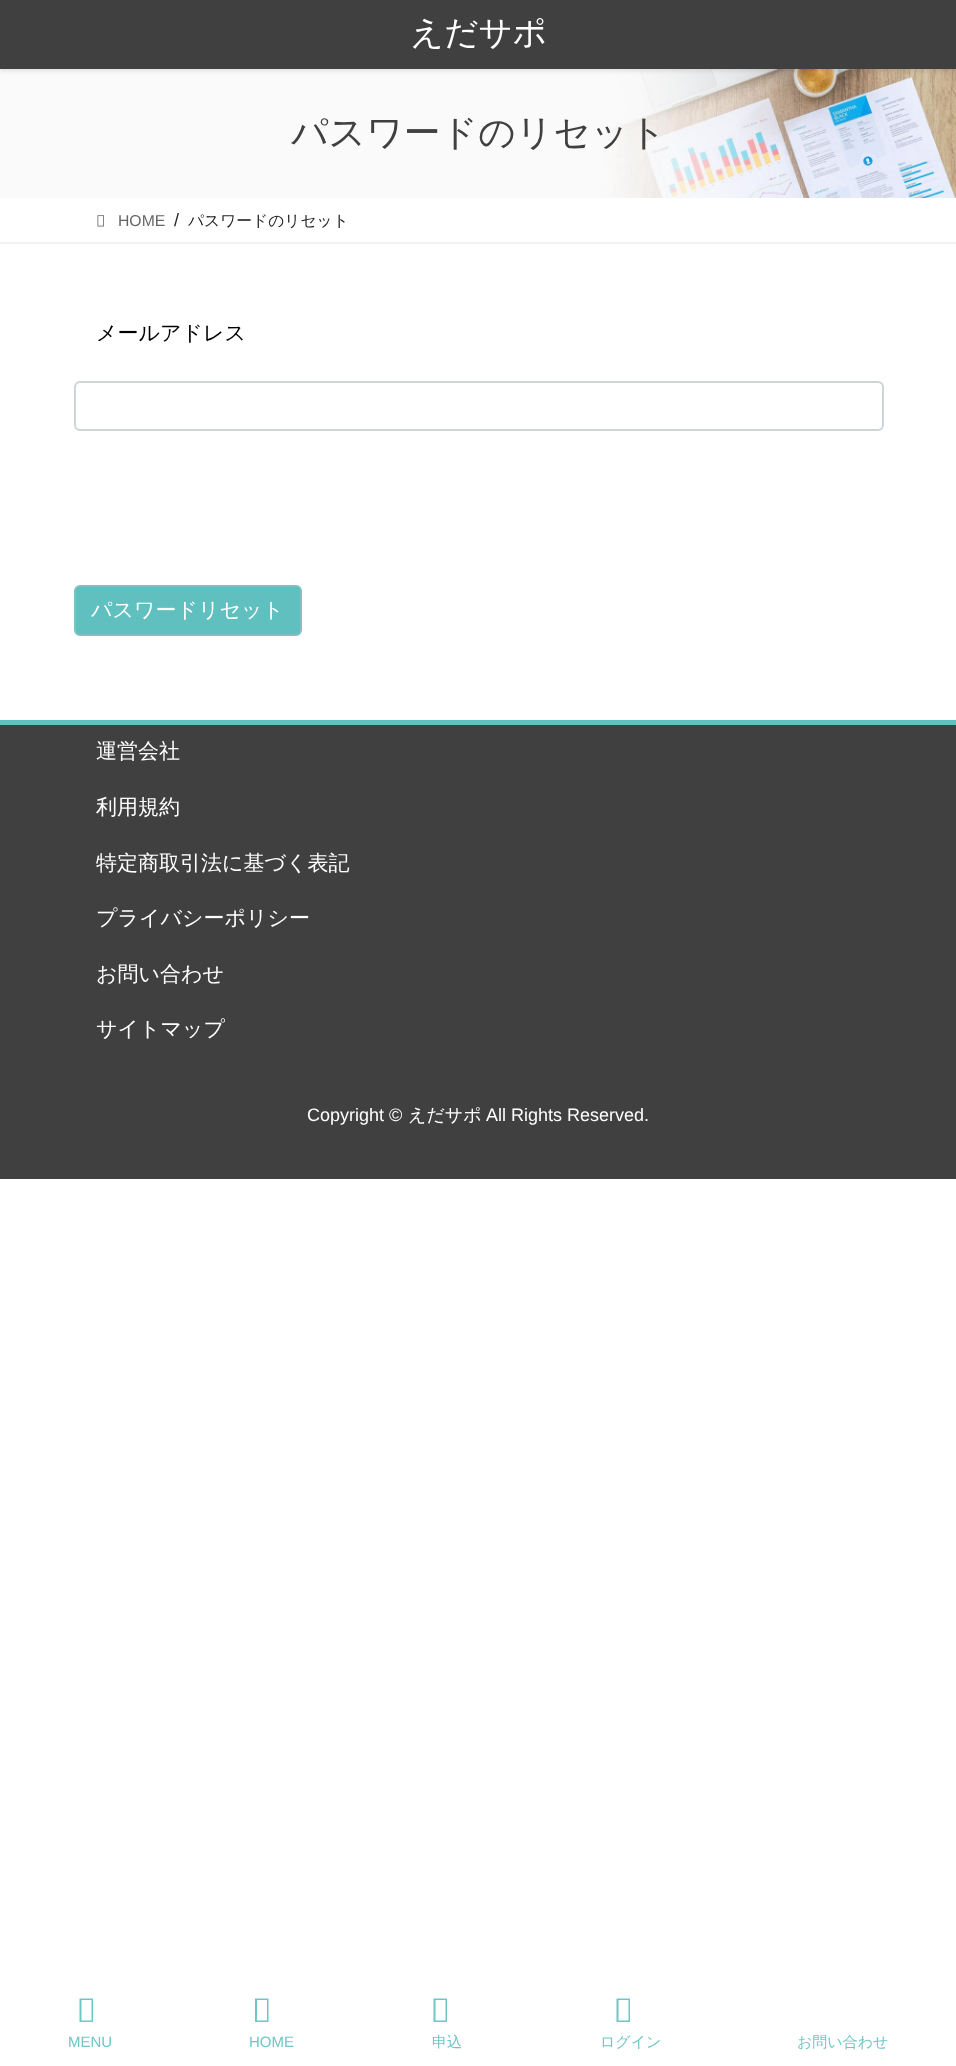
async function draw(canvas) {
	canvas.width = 956;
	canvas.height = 2066;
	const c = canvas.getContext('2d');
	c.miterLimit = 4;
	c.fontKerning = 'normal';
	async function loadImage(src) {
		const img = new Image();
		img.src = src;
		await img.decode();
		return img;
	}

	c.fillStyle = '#fff';
	c.fillRect(0, 0, 956, 2066);
	c.drawImage(await loadImage('img1.png'), 0, 69, 956, 129);
	c.fillStyle = '#0000001a';
	c.filter = 'blur(2px)';
	c.beginPath();
	c.rect(0, 2, 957, 69);
	c.fill();
	c.filter = 'none';
	c.fillStyle = '#404040';
	c.fillRect(0, 0, 956, 69);
	c.font = '500 33.5px WenQuanYi Zen Hei';
	c.fillStyle = '#fff';
	c.fillText('えだサポ', 410, 44);
	c.font = '500 36.75px WenQuanYi Zen Hei';
	c.fillStyle = '#404040';
	c.fillText('パスワードのリセット', 291, 145);
	c.fillStyle = '#f2f2f2';
	c.fillRect(0, 242, 956, 2);
	c.drawImage(await loadImage('img2.png'), 97, 215, 7, 12);
	c.font = '15.75px Liberation Sans';
	c.fillStyle = '#666';
	c.fillText('HOME', 118, 226);
	c.font = '18px Liberation Sans';
	c.fillStyle = '#212529';
	c.fillText('/', 174, 226);
	c.font = '500 15.75px WenQuanYi Zen Hei';
	c.fillText('パスワードのリセット', 188, 226);
	c.font = '500 21px WenQuanYi Zen Hei';
	c.fillStyle = '#000';
	c.fillText('メールアドレス', 96, 340);
	c.beginPath();
	c.roundRect(75, 382, 808, 48, 5);
	c.strokeStyle = '#ced4da';
	c.lineWidth = 2;
	c.stroke();
	c.fillStyle = '#60c0c0';
	c.beginPath();
	c.roundRect(75, 586, 226, 49, 5);
	c.fill();
	c.strokeStyle = '#80c0c0';
	c.stroke();
	c.fillStyle = '#fff';
	c.fillText('パスワードリセット', 91, 617);
	c.fillStyle = '#404040';
	c.fillRect(0, 725, 956, 454);
	c.fillStyle = '#60c0c0';
	c.fillRect(0, 720, 956, 5);
	c.fillStyle = '#fff';
	for (const [text, x, y] of [
		['運営会社', 96, 758],
		['利用規約', 96, 814],
		['特定商取引法に基づく表記', 96, 870],
		['プライバシーポリシー', 96, 925],
		['お問い合わせ', 96, 981],
		['サイトマップ', 96, 1036],
	]) {
		c.fillText(text, x, y);
	}
	c.font = '18px Liberation Sans';
	c.fillText('Copyright ©', 307, 1121);
	c.font = '500 18px WenQuanYi Zen Hei';
	c.fillText('えだサポ', 408, 1121);
	c.font = '18px Liberation Sans';
	c.fillText('All Rights Reserved.', 486, 1121);
	c.fillStyle = '#70c6c6';
	c.beginPath();
	c.moveTo(79.5, 2022);
	c.lineTo(79.5, 1998.5);
	c.lineTo(93, 1998.5);
	c.lineTo(93, 2022);
	c.closePath();
	c.moveTo(81.5, 2020.5);
	c.lineTo(91.5, 2020.5);
	c.lineTo(91.5, 2000);
	c.lineTo(81.5, 2000);
	c.closePath();
	c.fill();
	c.font = '15px Liberation Sans';
	c.fillText('MENU', 68, 2047);
	c.beginPath();
	c.moveTo(255, 2022);
	c.lineTo(255, 1998.5);
	c.lineTo(268.5, 1998.5);
	c.lineTo(268.5, 2022);
	c.closePath();
	c.moveTo(257, 2020.5);
	c.lineTo(267, 2020.5);
	c.lineTo(267, 2000);
	c.lineTo(257, 2000);
	c.closePath();
	c.fill();
	c.fillText('HOME', 249, 2047);
	c.beginPath();
	c.moveTo(433.5, 2022);
	c.lineTo(433.5, 1998.5);
	c.lineTo(447, 1998.5);
	c.lineTo(447, 2022);
	c.closePath();
	c.moveTo(435.5, 2020.5);
	c.lineTo(445.5, 2020.5);
	c.lineTo(445.5, 2000);
	c.lineTo(435.5, 2000);
	c.closePath();
	c.fill();
	c.font = '500 15px WenQuanYi Zen Hei';
	c.fillText('申込', 432, 2047);
	c.beginPath();
	c.moveTo(616.5, 2022);
	c.lineTo(616.5, 1998.5);
	c.lineTo(630, 1998.5);
	c.lineTo(630, 2022);
	c.closePath();
	c.moveTo(618.5, 2020.5);
	c.lineTo(628.5, 2020.5);
	c.lineTo(628.5, 2000);
	c.lineTo(618.5, 2000);
	c.closePath();
	c.fill();
	c.fillText('ログイン', 600, 2047);
	c.fillText('お問い合わせ', 797, 2047);
}

draw(document.querySelector('canvas'));
